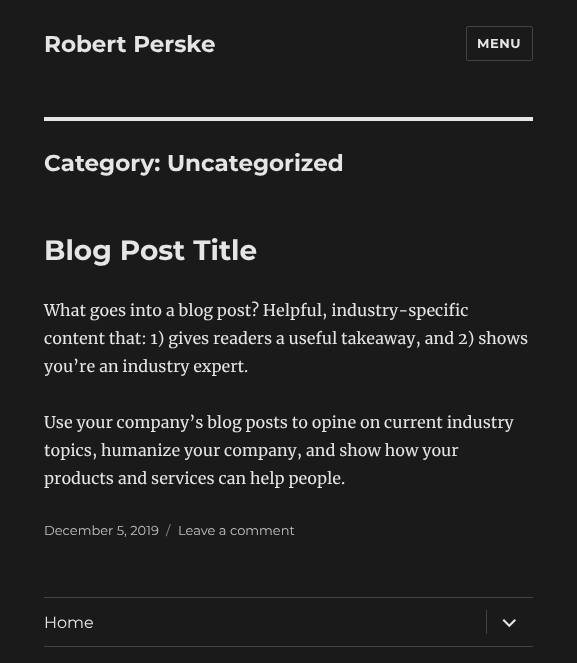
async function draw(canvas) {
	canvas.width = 577;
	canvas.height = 663;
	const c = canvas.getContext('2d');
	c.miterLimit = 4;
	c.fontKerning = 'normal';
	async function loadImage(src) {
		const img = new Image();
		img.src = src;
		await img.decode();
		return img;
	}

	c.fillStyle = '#1a1a1a';
	c.fillRect(0, 0, 577, 663);
	c.font = '100 23px Montserrat';
	c.fillStyle = '#e5e5e5';
	c.fillText('Robert Perske', 44, 52);
	c.beginPath();
	c.roundRect(466.5, 26.5, 66, 34, 1.5);
	c.strokeStyle = '#434343';
	c.stroke();
	c.letterSpacing = '0.5px';
	c.font = '100 13px Montserrat';
	c.fillText('MENU', 477, 48);
	c.fillRect(44, 117, 489, 4);
	c.letterSpacing = '0px';
	c.font = '100 23px Montserrat';
	c.fillText('Category: Uncategorized', 44, 171);
	c.font = '100 28px Montserrat';
	c.fillText('Blog Post Title', 44, 260);
	c.font = '16px Merriweather';
	for (const [text, x, y] of [
		['What goes into a blog post? Helpful, industry-specific', 44, 316],
		['content that: 1) gives readers a useful takeaway, and 2) shows', 44, 344],
		['you’re an industry expert.', 44, 372],
		['Use your company’s blog posts to opine on current industry', 44, 428],
		['topics, humanize your company, and show how your', 44, 456],
		['products and services can help people.', 44, 484],
	]) {
		c.fillText(text, x, y);
	}
	c.font = '100 13px "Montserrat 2"';
	c.fillStyle = '#c1c1c1';
	c.fillText('December 5, 2019', 44, 535);
	c.fillStyle = '#8f8f8f';
	c.fillText('/', 166, 535);
	c.fillStyle = '#c1c1c1';
	c.fillText('Leave a comment', 178, 535);
	c.fillStyle = '#434343';
	c.fillRect(44, 646, 489, 1);
	c.fillRect(44, 597, 489, 1);
	c.font = '100 16px "Montserrat 2"';
	c.fillStyle = '#e5e5e5';
	c.fillText('Home', 44, 628);
	c.fillStyle = '#434343';
	c.fillRect(486, 610, 1, 24);
	c.drawImage(await loadImage('img1.png'), 502, 619, 14, 9);
}

draw(document.querySelector('canvas'));
